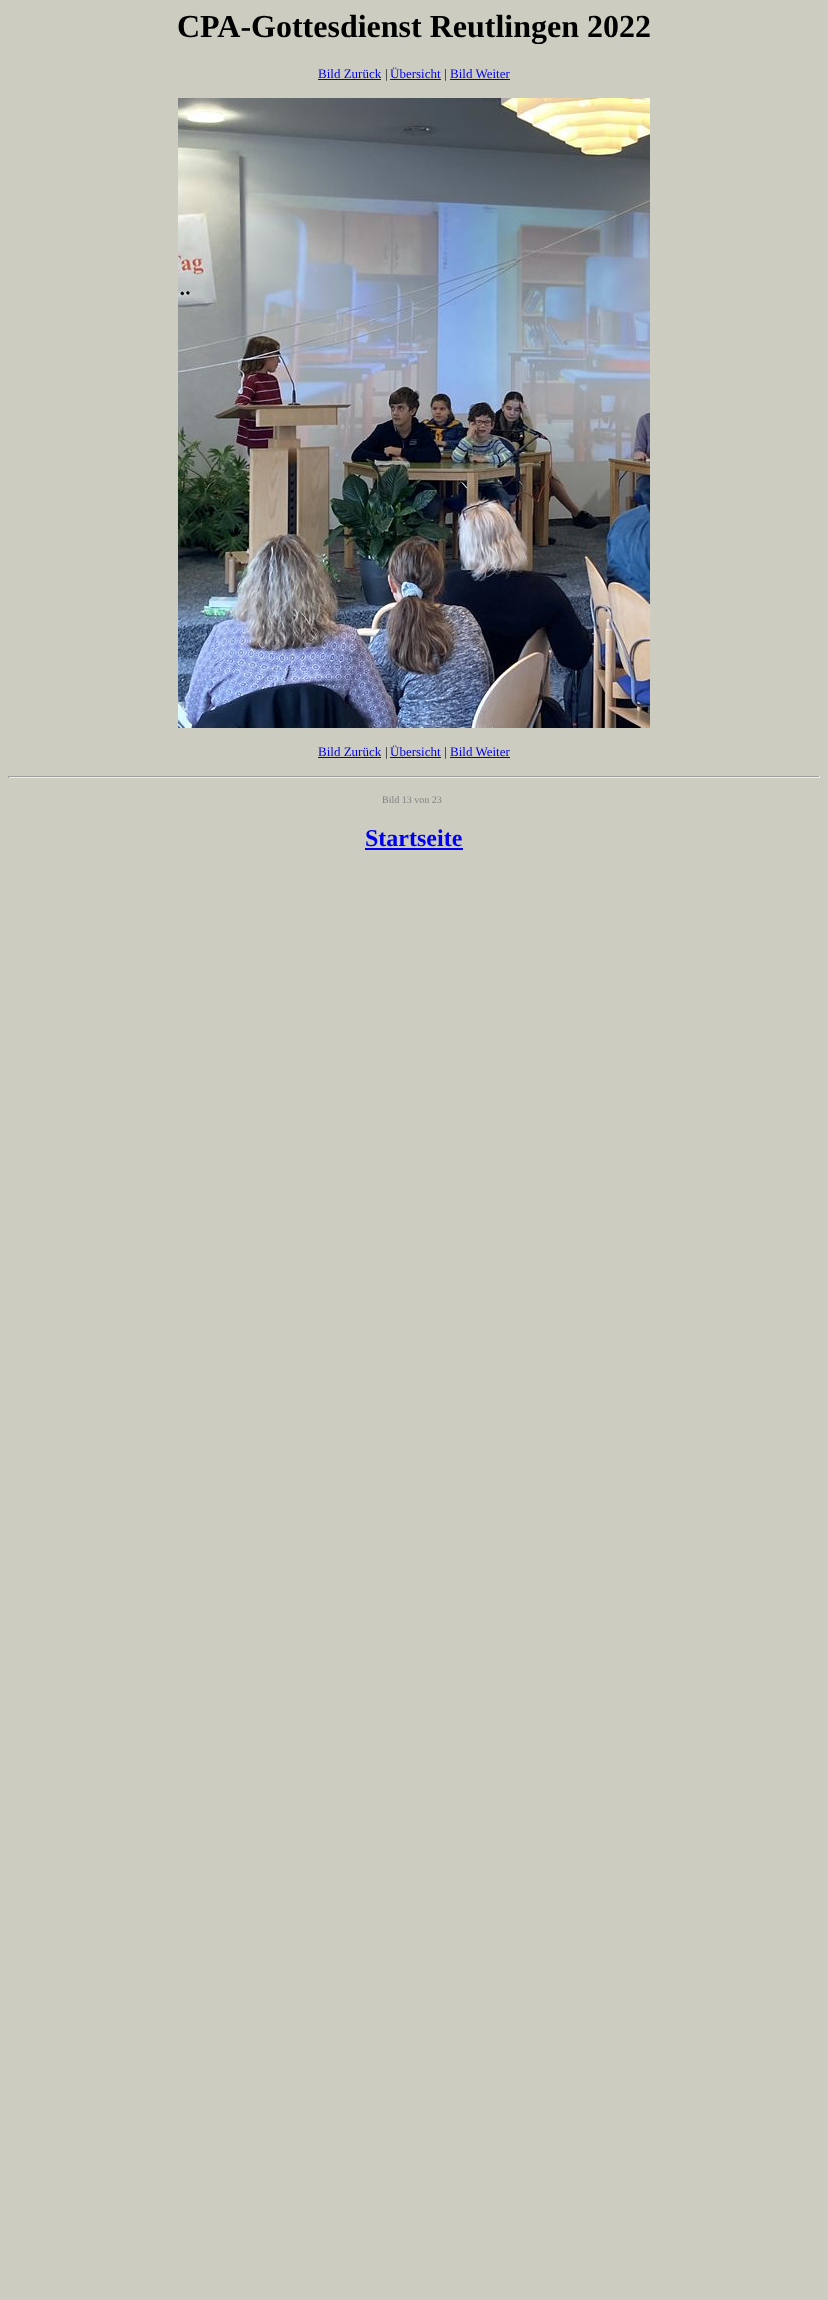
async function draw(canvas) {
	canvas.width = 828;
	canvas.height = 2300;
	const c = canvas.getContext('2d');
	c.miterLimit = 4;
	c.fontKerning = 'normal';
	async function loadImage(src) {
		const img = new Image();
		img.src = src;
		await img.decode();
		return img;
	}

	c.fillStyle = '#ccccc0';
	c.fillRect(0, 0, 828, 2300);
	c.font = 'bold 32px Liberation Serif';
	c.fillStyle = '#000';
	c.fillText('CPA-Gottesdienst Reutlingen 2022', 177, 37);
	c.font = '13px Liberation Serif';
	c.fillStyle = '#00e';
	c.fillText('Bild Zurück', 318, 78);
	c.fillRect(318, 79, 63, 1);
	c.fillStyle = '#000';
	c.fillText('|', 385, 78);
	c.fillStyle = '#00e';
	c.fillRect(390, 79, 51, 1);
	c.fillText('Übersicht', 390, 78);
	c.fillStyle = '#000';
	c.fillText('|', 444, 78);
	c.fillStyle = '#00e';
	c.fillText('Bild Weiter', 450, 78);
	c.fillRect(450, 79, 60, 1);
	c.drawImage(await loadImage('img1.png'), 178, 98, 472, 630);
	c.fillText('Bild Zurück', 318, 756);
	c.fillRect(318, 757, 63, 1);
	c.fillStyle = '#000';
	c.fillText('|', 385, 756);
	c.fillStyle = '#00e';
	c.fillRect(390, 757, 51, 1);
	c.fillText('Übersicht', 390, 756);
	c.fillStyle = '#000';
	c.fillText('|', 444, 756);
	c.fillStyle = '#00e';
	c.fillText('Bild Weiter', 450, 756);
	for (const [x, y, w, h, color] of [
		[450, 757, 60, 1, '#00e'],
		[8, 776, 812, 1, '#9f9f9f'],
		[819, 776, 1, 2, '#eee'],
		[8, 777, 812, 1, '#eee'],
		[8, 776, 1, 2, '#9f9f9f'],
	]) {
		c.fillStyle = color;
		c.fillRect(x, y, w, h);
	}
	c.font = '10px Liberation Serif';
	c.fillStyle = '#808080';
	c.fillText('Bild 13 von 23', 382, 803);
	c.font = 'bold 24px Liberation Serif';
	c.fillStyle = '#00e';
	c.fillText('Startseite', 365, 846);
	c.fillRect(365, 848, 98, 2);
}

draw(document.querySelector('canvas'));
